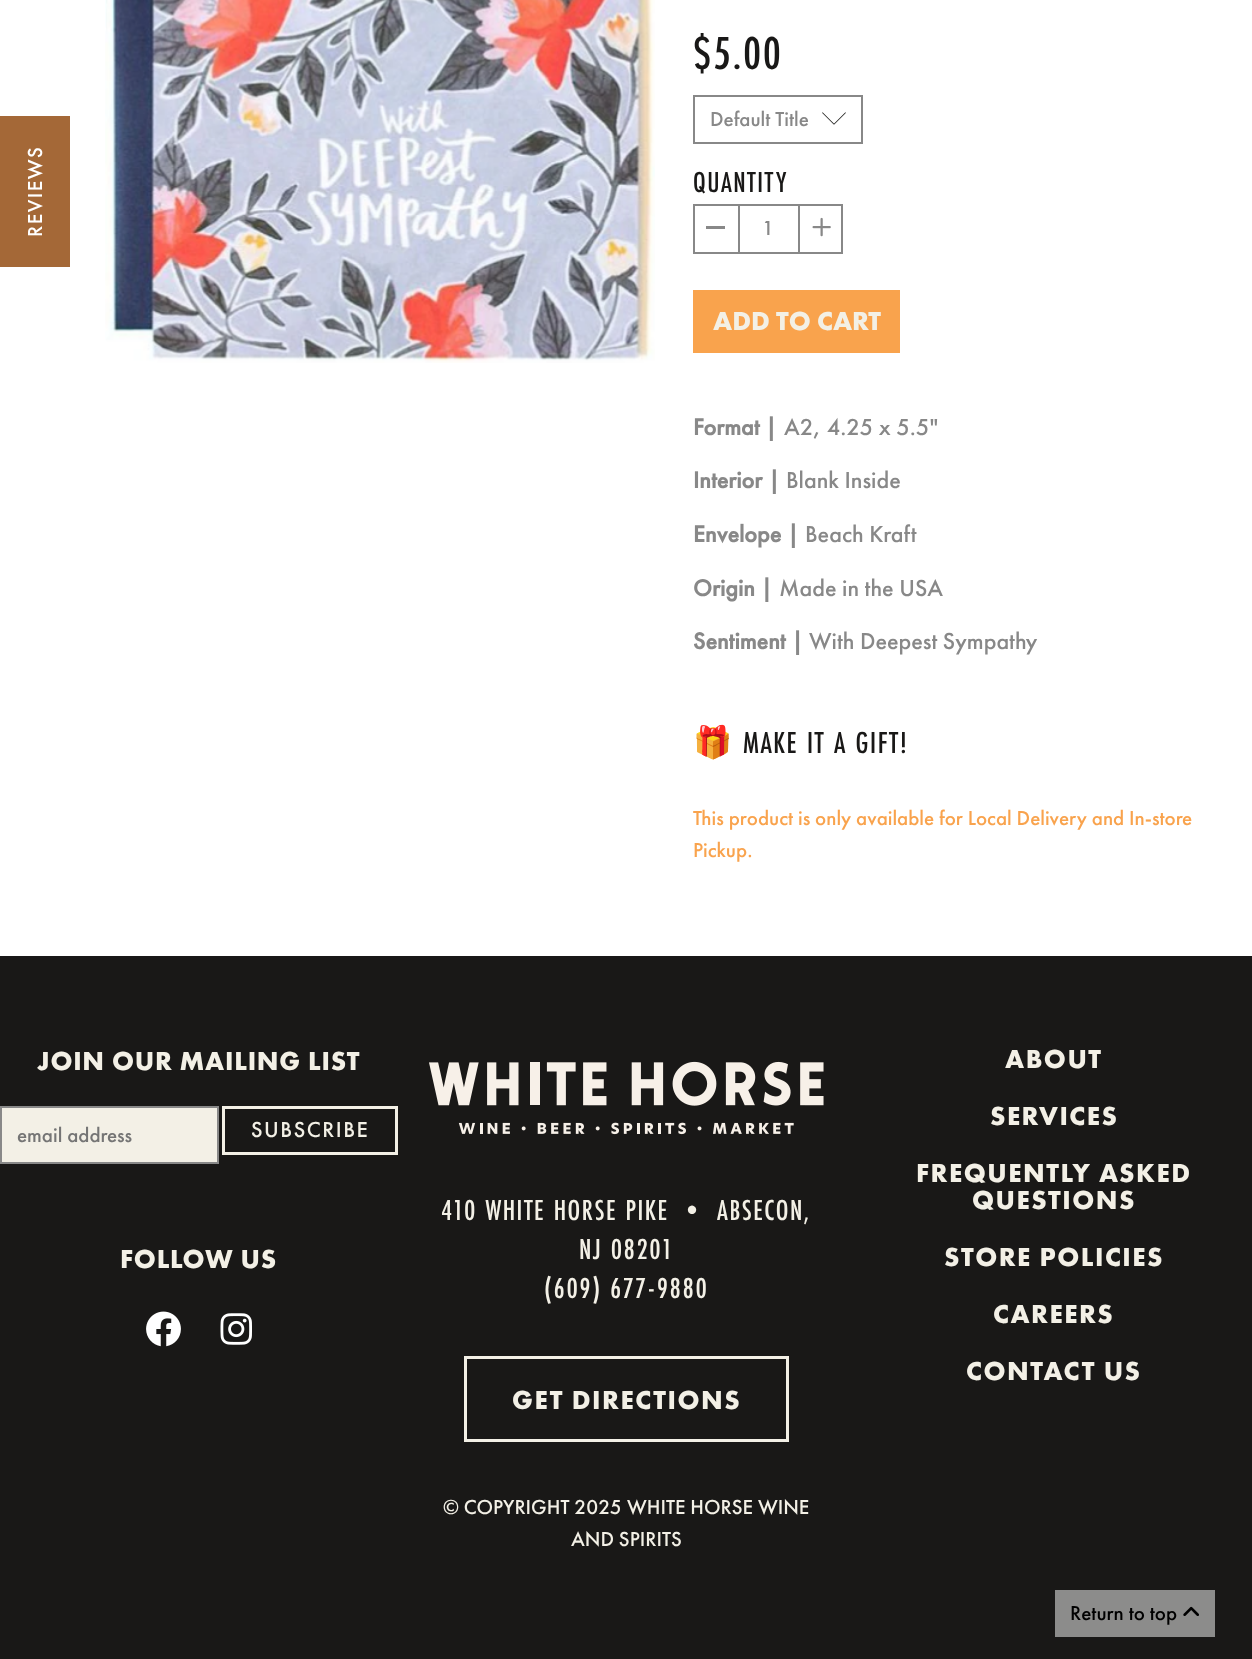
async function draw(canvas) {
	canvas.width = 1252;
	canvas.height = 1659;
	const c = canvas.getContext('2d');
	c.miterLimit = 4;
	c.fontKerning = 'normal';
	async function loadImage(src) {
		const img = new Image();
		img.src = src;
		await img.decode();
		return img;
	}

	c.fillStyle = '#fff';
	c.fillRect(0, 0, 1252, 1659);
	c.drawImage(await loadImage('img1.png'), 105, 0, 550, 363);
	c.letterSpacing = '1.5px';
	c.font = '500 48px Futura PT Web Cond';
	c.fillStyle = '#191817';
	c.fillText('$5.00', 693, 69);
	c.drawImage(await loadImage('img2.png'), 822, 112, 24, 13);
	c.strokeStyle = '#888';
	c.lineWidth = 2;
	c.strokeRect(694, 96, 168, 47);
	c.letterSpacing = '0px';
	c.font = '500 21px Futura PT';
	c.fillStyle = '#888';
	c.fillText('Default Title', 710, 126);
	c.letterSpacing = '1.5px';
	c.font = '500 30px Futura PT Web Cond';
	c.fillStyle = '#191817';
	c.fillText('QUANTITY', 693, 192);
	c.strokeRect(694, 205, 148, 48);
	c.fillStyle = '#888';
	c.fillRect(738, 204, 2, 50);
	c.fillRect(706, 226, 19, 3);
	c.letterSpacing = '0px';
	c.font = '500 21px Futura PT';
	c.fillText('1', 762, 235);
	c.fillRect(798, 204, 2, 50);
	c.drawImage(await loadImage('img3.png'), 812, 217, 19, 20);
	c.fillStyle = '#f9a34d';
	c.fillRect(693, 290, 207, 63);
	c.font = 'bold 27px "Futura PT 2"';
	c.fillStyle = '#f3f0e6';
	c.fillText('ADD TO CART', 713, 330);
	c.font = 'bold 24px Futura PT';
	c.fillStyle = '#888';
	c.fillText('Format |', 693, 435);
	c.font = '500 24px Futura PT';
	c.fillText('A2, 4.25 x 5.5"', 784, 435);
	c.font = 'bold 24px Futura PT';
	c.fillText('Interior |', 693, 488);
	c.font = '500 24px Futura PT';
	c.fillText('Blank Inside', 786, 488);
	c.font = 'bold 24px Futura PT';
	c.fillText('Envelope |', 693, 542);
	c.font = '500 24px Futura PT';
	c.fillText('Beach Kraft', 805, 542);
	c.font = 'bold 24px Futura PT';
	c.fillText('Origin |', 693, 596);
	c.font = '500 24px Futura PT';
	c.fillText('Made in the USA', 779, 596);
	c.font = 'bold 24px Futura PT';
	c.fillText('Sentiment |', 693, 649);
	c.font = '500 24px Futura PT';
	c.fillText('With Deepest Sympathy', 809, 649);
	c.letterSpacing = '1.5px';
	c.font = '31.5px Noto Color Emoji';
	c.fillStyle = '#191817';
	c.fillText('🎁', 693, 753);
	c.font = '500 31.5px Futura PT Web Cond';
	c.fillText('MAKE IT A GIFT!', 743, 753);
	c.letterSpacing = '0px';
	c.font = '500 21px Futura PT';
	c.fillStyle = '#f9a34d';
	c.fillText('This product is only available for Local Delivery and In-store', 693, 825);
	c.fillText('Pickup.', 693, 857);
	c.fillStyle = '#191817';
	c.fillRect(0, 956, 1252, 703);
	c.letterSpacing = '0.75px';
	c.font = 'bold 27px "Futura PT 2"';
	c.fillStyle = '#f3f0e6';
	c.fillText('JOIN OUR MAILING LIST', 37, 1070);
	c.beginPath();
	c.rect(1, 1107, 217, 56);
	c.fill();
	c.stroke();
	c.letterSpacing = '0px';
	c.font = '500 21px Futura PT';
	c.fillStyle = '#757575';
	c.fillText('email address', 17, 1142);
	c.strokeStyle = '#f3f0e6';
	c.lineWidth = 3;
	c.strokeRect(223.5, 1107.5, 173, 46);
	c.letterSpacing = '1.5px';
	c.font = '500 22.5px Futura PT';
	c.fillStyle = '#f3f0e6';
	c.fillText('SUBSCRIBE', 251, 1137);
	c.letterSpacing = '0.75px';
	c.font = 'bold 27px "Futura PT 2"';
	c.fillText('FOLLOW US', 120, 1268);
	c.drawImage(await loadImage('img4.png'), 146, 1311, 35, 36);
	c.drawImage(await loadImage('img5.png'), 220, 1313, 32, 32);
	c.letterSpacing = '1.5px';
	for (const [text, x, y] of [
		['ABOUT', 1005, 1068],
		['SERVICES', 990, 1125],
		['FREQUENTLY ASKED', 916, 1182],
		['QUESTIONS', 972, 1209],
		['STORE POLICIES', 944, 1266],
		['CAREERS', 993, 1323],
		['CONTACT US', 966, 1380],
	]) {
		c.fillText(text, x, y);
	}
	c.drawImage(await loadImage('img6.png'), 429, 1061, 395, 74);
	c.font = '500 30px Futura PT Web Cond';
	for (const [text, x, y] of [
		['410 WHITE HORSE PIKE • ABSECON,', 441, 1220],
		['NJ 08201', 579, 1259],
		['(609) 677-9880', 544, 1298],
	]) {
		c.fillText(text, x, y);
	}
	c.strokeRect(465.5, 1357.5, 322, 83);
	c.font = 'bold 27px "Futura PT 2"';
	c.fillText('GET DIRECTIONS', 512, 1409);
	c.letterSpacing = '0px';
	c.font = '500 21px Futura PT';
	for (const [text, x, y] of [
		['© COPYRIGHT 2025', 443, 1514],
		['WHITE HORSE WINE', 627, 1514],
		['AND SPIRITS', 571, 1546],
	]) {
		c.fillText(text, x, y);
	}
	c.fillStyle = '#a46837';
	c.fillRect(0, 116, 70, 151);
	c.letterSpacing = '1.5px';
	c.fillStyle = '#fff';
	c.save();
	c.translate(42, 237);
	c.rotate(-90 * Math.PI / 180);
	c.fillText('REVIEWS', 0, 0);
	c.restore();
	c.fillStyle = '#8c8c8b';
	c.fillRect(1055, 1590, 160, 47);
	c.letterSpacing = '0px';
	c.fillStyle = '#000';
	c.fillText('Return to top', 1070, 1620);
	c.drawImage(await loadImage('img7.png'), 1183, 1606, 16, 10);
}

draw(document.querySelector('canvas'));
